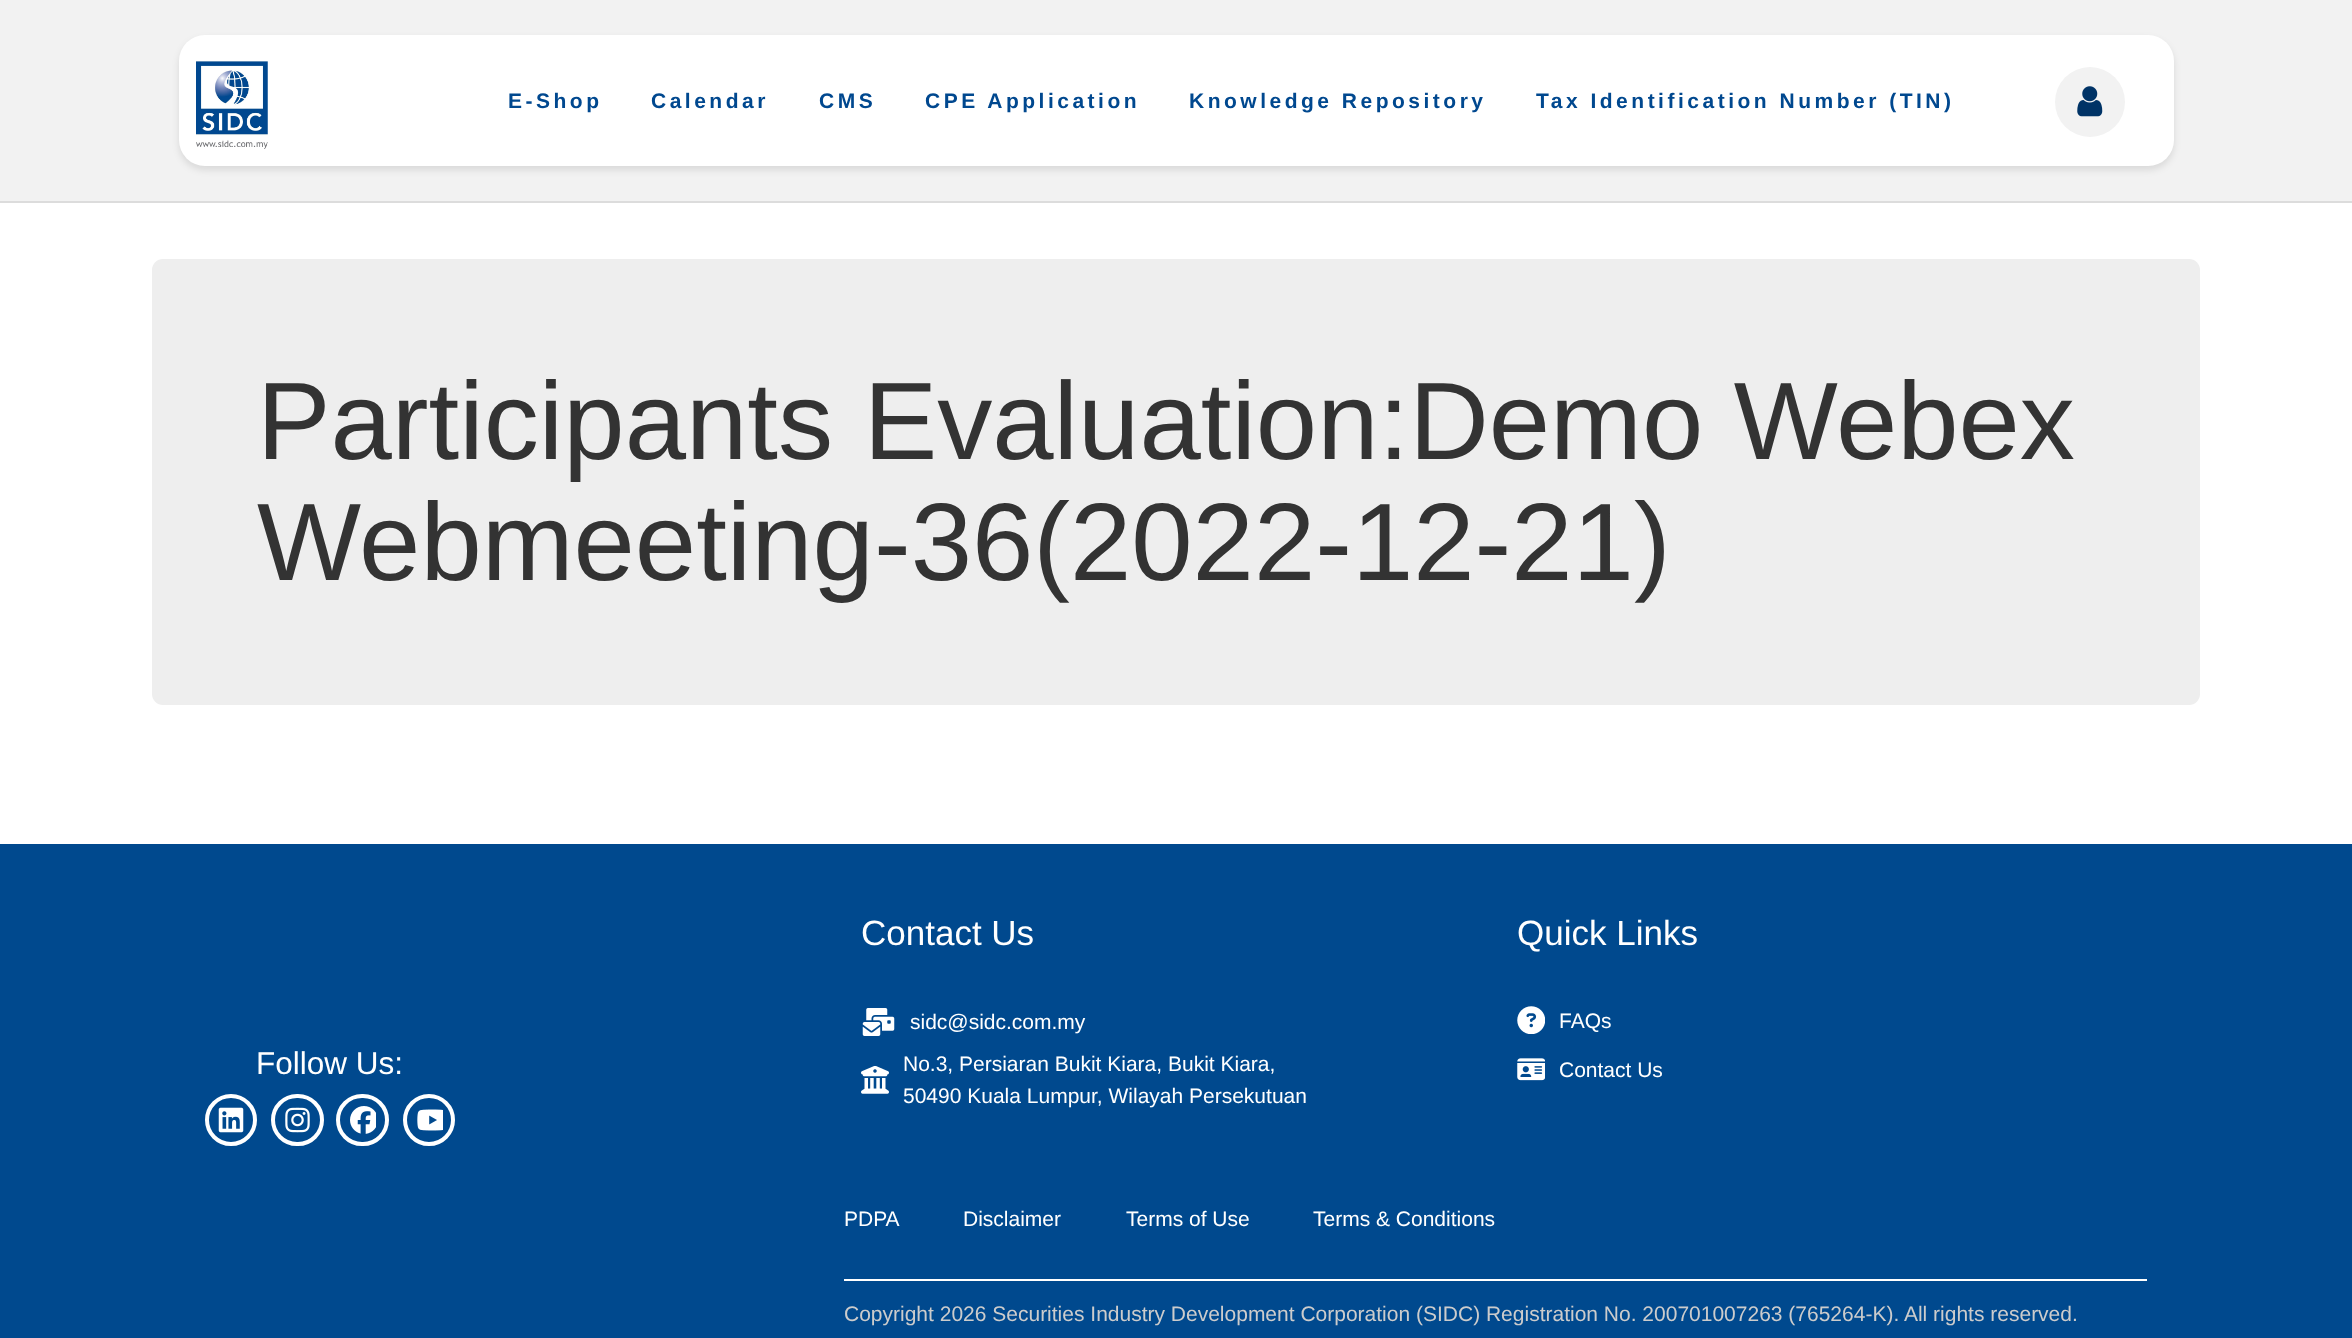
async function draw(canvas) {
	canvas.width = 2352;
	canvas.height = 1338;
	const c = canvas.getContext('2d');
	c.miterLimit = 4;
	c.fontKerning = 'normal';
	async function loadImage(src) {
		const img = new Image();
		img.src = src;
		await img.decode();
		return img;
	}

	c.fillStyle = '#fff';
	c.fillRect(0, 0, 2352, 1338);
	c.fillStyle = '#f2f2f2';
	c.fillRect(0, 0, 2352, 201);
	c.fillStyle = '#dcdcdc';
	c.fillRect(0, 201, 2352, 2);
	c.fillStyle = '#0000001a';
	c.filter = 'blur(3.5px)';
	c.beginPath();
	c.roundRect(179, 39, 1995, 131, 26);
	c.fill();
	c.filter = 'none';
	c.fillStyle = '#fff';
	c.beginPath();
	c.roundRect(179, 35, 1995, 131, 26);
	c.fill();
	c.drawImage(await loadImage('img1.png'), 196, 61, 72, 88);
	c.letterSpacing = '3.5px';
	c.font = 'bold 21px Liberation Sans';
	c.fillStyle = '#00488f';
	for (const [text, x, y] of [
		['E-Shop', 508, 108],
		['Calendar', 651, 108],
		['CMS', 819, 108],
		['CPE Application', 925, 108],
		['Knowledge Repository', 1189, 108],
		['Tax Identification Number (TIN)', 1536, 108],
	]) {
		c.fillText(text, x, y);
	}
	c.fillStyle = '#f2f2f2';
	c.beginPath();
	c.arc(2090, 102, 35, 0, 2 * Math.PI);
	c.fill();
	c.drawImage(await loadImage('img2.png'), 2077, 86, 26, 31);
	c.fillStyle = '#eee';
	c.beginPath();
	c.roundRect(152, 259, 2048, 446, 11);
	c.fill();
	c.letterSpacing = '0px';
	c.font = '110.25px Liberation Sans';
	c.fillStyle = '#333';
	c.fillText('Participants Evaluation:Demo Webex', 257, 459);
	c.fillText('Webmeeting-36(2022-12-21)', 257, 580);
	c.fillStyle = '#00498e';
	c.fillRect(0, 844, 2352, 494);
	c.font = '31.5px Liberation Sans';
	c.fillStyle = '#fff';
	c.fillText('Follow Us:', 256, 1074);
	c.beginPath();
	c.arc(231, 1120, 24, 0, 2 * Math.PI);
	c.strokeStyle = '#fff';
	c.lineWidth = 4;
	c.stroke();
	c.drawImage(await loadImage('img3.png'), 218, 1107, 26, 26);
	c.beginPath();
	c.roundRect(273, 1096, 49, 48, 24);
	c.stroke();
	c.drawImage(await loadImage('img4.png'), 285, 1107, 25, 26);
	c.beginPath();
	c.roundRect(338, 1096, 49, 48, 24);
	c.stroke();
	c.drawImage(await loadImage('img5.png'), 350, 1106, 26, 28);
	c.beginPath();
	c.arc(429, 1120, 24, 0, 2 * Math.PI);
	c.stroke();
	c.drawImage(await loadImage('img6.png'), 417, 1109, 26, 22);
	c.font = '35px Liberation Sans';
	c.fillText('Contact Us', 861, 945);
	c.drawImage(await loadImage('img7.png'), 862, 1008, 33, 28);
	c.font = '21px Liberation Sans';
	c.fillText('sidc@sidc.com.my', 910, 1029);
	c.drawImage(await loadImage('img8.png'), 861, 1066, 28, 28);
	c.fillText('No.3, Persiaran Bukit Kiara, Bukit Kiara,', 903, 1071);
	c.fillText('50490 Kuala Lumpur, Wilayah Persekutuan', 903, 1103);
	c.font = '35px Liberation Sans';
	c.fillText('Quick Links', 1517, 945);
	c.drawImage(await loadImage('img9.png'), 1517, 1006, 28, 28);
	c.font = '21px Liberation Sans';
	c.fillText('FAQs', 1559, 1028);
	c.drawImage(await loadImage('img10.png'), 1517, 1058, 28, 23);
	for (const [text, x, y] of [
		['Contact Us', 1559, 1077],
		['PDPA', 844, 1226],
		['Disclaimer', 963, 1226],
		['Terms of Use', 1126, 1226],
		['Terms & Conditions', 1313, 1226],
	]) {
		c.fillText(text, x, y);
	}
	c.fillRect(844, 1279, 1303, 2);
	c.fillStyle = '#ccc';
	c.fillText('Copyright 2026 Securities Industry Development Corporation (SIDC) Registration No. 200701007263 (765264-K). All rights reserved.', 844, 1321);
}

draw(document.querySelector('canvas'));
